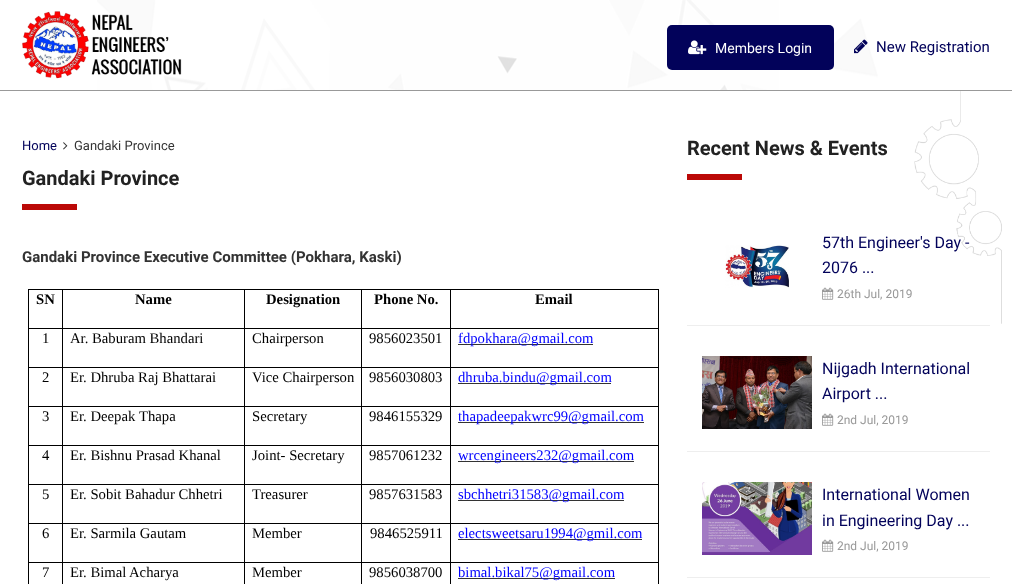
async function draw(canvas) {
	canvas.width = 1012;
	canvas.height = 584;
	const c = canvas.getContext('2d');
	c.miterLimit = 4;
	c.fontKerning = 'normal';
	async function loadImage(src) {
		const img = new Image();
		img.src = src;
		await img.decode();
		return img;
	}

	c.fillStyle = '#fff';
	c.fillRect(0, 0, 1012, 584);
	c.fillStyle = '#999';
	c.fillRect(0, 90, 1012, 1);
	c.drawImage(await loadImage('img1.png'), 97, 0, 781, 90);
	c.drawImage(await loadImage('img2.png'), 22, 11, 160, 68);
	c.fillStyle = '#02025a';
	c.beginPath();
	c.roundRect(667, 25, 167, 45, 5);
	c.fill();
	c.drawImage(await loadImage('img3.png'), 688, 40, 19, 15);
	c.font = '14px Roboto';
	c.fillStyle = '#fff';
	c.fillText('Members Login', 715, 53);
	c.drawImage(await loadImage('img4.png'), 854, 39, 14, 15);
	c.font = '15px Roboto';
	c.fillStyle = '#02025a';
	c.fillText('New Registration', 876, 52);
	c.drawImage(await loadImage('img5.png'), 914, 91, 88, 233);
	c.font = '13px Roboto';
	c.fillText('Home', 22, 150);
	c.drawImage(await loadImage('img6.png'), 63, 142, 5, 8);
	c.fillStyle = '#333';
	c.fillText('Gandaki Province', 74, 150);
	c.font = 'bold 20px Roboto';
	c.fillStyle = '#222';
	c.fillText('Gandaki Province', 22, 185);
	c.fillStyle = '#bb0907';
	c.fillRect(22, 204, 55, 6);
	c.font = 'bold 15px Roboto';
	c.fillStyle = '#333';
	c.fillText('Gandaki Province Executive Committee (Pokhara, Kaski)', 22, 262);
	for (const [x, y, w, h, color] of [
		[28, 289, 631, 1, '#000'],
		[658, 328, 1, 256, '#000'],
		[658, 289, 1, 40, '#000'],
		[450, 562, 1, 22, '#000'],
		[450, 562, 209, 1, '#000'],
		[450, 523, 1, 40, '#000'],
		[450, 523, 209, 1, '#000'],
		[450, 484, 1, 40, '#000'],
		[450, 484, 209, 1, '#000'],
		[450, 445, 1, 40, '#000'],
		[450, 445, 209, 1, '#000'],
		[450, 406, 1, 40, '#000'],
		[450, 406, 209, 1, '#000'],
		[450, 367, 1, 40, '#000'],
		[450, 367, 209, 1, '#000'],
		[450, 328, 1, 40, '#000'],
		[450, 328, 209, 1, '#000'],
		[450, 289, 1, 40, '#000'],
		[361, 562, 1, 22, '#000'],
		[361, 562, 90, 1, '#000'],
		[361, 523, 1, 40, '#000'],
		[361, 523, 90, 1, '#000'],
		[361, 484, 1, 40, '#000'],
		[361, 484, 90, 1, '#000'],
		[361, 445, 1, 40, '#000'],
		[361, 445, 90, 1, '#000'],
		[361, 406, 1, 40, '#000'],
		[361, 406, 90, 1, '#000'],
		[361, 367, 1, 40, '#000'],
		[361, 367, 90, 1, '#000'],
		[361, 328, 1, 40, '#000'],
		[361, 328, 90, 1, '#000'],
		[361, 289, 1, 40, '#000'],
		[244, 562, 1, 22, '#000'],
		[244, 562, 118, 1, '#000'],
		[244, 523, 1, 40, '#000'],
		[244, 523, 118, 1, '#000'],
		[244, 484, 1, 40, '#000'],
		[244, 484, 118, 1, '#000'],
		[244, 445, 1, 40, '#000'],
		[244, 445, 118, 1, '#000'],
		[244, 406, 1, 40, '#000'],
		[244, 406, 118, 1, '#000'],
		[244, 367, 1, 40, '#000'],
		[244, 367, 118, 1, '#000'],
		[244, 328, 1, 40, '#000'],
		[244, 328, 118, 1, '#000'],
		[244, 289, 1, 40, '#000'],
		[62, 562, 1, 22, '#000'],
		[62, 562, 183, 1, '#000'],
		[62, 523, 1, 40, '#000'],
		[62, 523, 183, 1, '#000'],
		[62, 484, 1, 40, '#000'],
		[62, 484, 183, 1, '#000'],
		[62, 445, 1, 40, '#000'],
		[62, 445, 183, 1, '#000'],
		[62, 406, 1, 40, '#000'],
		[62, 406, 183, 1, '#000'],
		[62, 367, 1, 40, '#000'],
		[62, 367, 183, 1, '#000'],
		[62, 328, 1, 40, '#000'],
		[62, 328, 183, 1, '#000'],
		[62, 289, 1, 40, '#000'],
		[28, 562, 1, 22, '#000'],
		[28, 562, 35, 1, '#000'],
		[28, 523, 1, 40, '#000'],
		[28, 523, 35, 1, '#000'],
		[28, 484, 1, 40, '#000'],
		[28, 484, 35, 1, '#000'],
		[28, 445, 1, 40, '#000'],
		[28, 445, 35, 1, '#000'],
		[28, 406, 1, 40, '#000'],
		[28, 406, 35, 1, '#000'],
		[28, 367, 1, 40, '#000'],
		[28, 367, 35, 1, '#000'],
		[28, 328, 1, 40, '#000'],
		[28, 328, 35, 1, '#000'],
		[28, 289, 1, 40, '#000'],
	]) {
		c.fillStyle = color;
		c.fillRect(x, y, w, h);
	}
	c.font = 'bold 14.7px Liberation Serif';
	for (const [text, x, y] of [
		['SN', 36, 304],
		['Name', 135, 304],
		['Designation', 266, 304],
		['Phone No.', 374, 304],
		['Email', 535, 304],
	]) {
		c.fillText(text, x, y);
	}
	c.font = '14.7px Liberation Serif';
	for (const [text, x, y] of [
		['1', 42, 343],
		['Ar. Baburam Bhandari', 70, 343],
		['Chairperson', 252, 343],
		['9856023501', 369, 343],
	]) {
		c.fillText(text, x, y);
	}
	c.fillStyle = '#333';
	c.fillRect(458, 344, 135, 1);
	c.fillStyle = '#00f';
	c.fillText('fdpokhara@gmail.com', 458, 343);
	c.fillStyle = '#000';
	for (const [text, x, y] of [
		['2', 42, 382],
		['Er. Dhruba Raj Bhattarai', 70, 382],
		['Vice Chairperson', 252, 382],
		['9856030803', 369, 382],
	]) {
		c.fillText(text, x, y);
	}
	c.fillStyle = '#333';
	c.fillRect(458, 383, 153, 1);
	c.fillStyle = '#00f';
	c.fillText('dhruba.bindu@gmail.com', 458, 382);
	c.fillStyle = '#000';
	for (const [text, x, y] of [
		['3', 42, 421],
		['Er. Deepak', 70, 421],
		['Thapa', 139, 421],
		['Secretary', 252, 421],
		['9846155329', 369, 421],
	]) {
		c.fillText(text, x, y);
	}
	c.fillStyle = '#333';
	c.fillRect(458, 422, 186, 1);
	c.fillStyle = '#00f';
	c.fillText('thapadeepakwrc99@gmail.com', 458, 421);
	c.fillStyle = '#000';
	for (const [text, x, y] of [
		['4', 42, 460],
		['Er. Bishnu Prasad Khanal', 70, 460],
		['Joint- Secretary', 252, 460],
		['9857061232', 369, 460],
	]) {
		c.fillText(text, x, y);
	}
	c.fillStyle = '#333';
	c.fillRect(458, 461, 176, 1);
	c.fillStyle = '#00f';
	c.fillText('wrcengineers232@gmail.com', 458, 460);
	c.fillStyle = '#000';
	for (const [text, x, y] of [
		['5', 42, 499],
		['Er. Sobit Bahadur Chhetri', 70, 499],
		['Treasurer', 252, 499],
		['9857631583', 369, 499],
	]) {
		c.fillText(text, x, y);
	}
	c.fillStyle = '#333';
	c.fillRect(458, 500, 166, 1);
	c.fillStyle = '#00f';
	c.fillText('sbchhetri31583@gmail.com', 458, 499);
	c.fillStyle = '#000';
	for (const [text, x, y] of [
		['6', 42, 538],
		['Er. Sarmila Gautam', 70, 538],
		['Member', 252, 538],
		['9846525911', 370, 538],
	]) {
		c.fillText(text, x, y);
	}
	c.fillStyle = '#333';
	c.fillRect(458, 539, 184, 1);
	c.fillStyle = '#00f';
	c.fillText('electsweetsaru1994@gmil.com', 458, 538);
	c.fillStyle = '#000';
	for (const [text, x, y] of [
		['7', 42, 577],
		['Er. Bimal', 70, 577],
		['Acharya', 129, 577],
		['Member', 252, 577],
		['9856038700', 369, 577],
	]) {
		c.fillText(text, x, y);
	}
	c.fillStyle = '#333';
	c.fillRect(458, 578, 157, 1);
	c.fillStyle = '#00f';
	c.fillText('bimal.bikal75@gmail.com', 458, 577);
	c.font = 'bold 20px Roboto';
	c.fillStyle = '#222';
	c.fillText('Recent News & Events', 687, 155);
	c.fillStyle = '#bb0907';
	c.fillRect(687, 174, 55, 6);
	c.fillStyle = '#eee';
	c.fillRect(687, 325, 303, 1);
	c.drawImage(await loadImage('img7.png'), 725, 245, 64, 43);
	c.font = '16px Roboto';
	c.fillStyle = '#02025a';
	c.fillText('57th Engineer\'s Day -', 822, 248);
	c.fillText('2076 ...', 822, 273);
	c.drawImage(await loadImage('img8.png'), 822, 287, 12, 13);
	c.font = '12px Roboto';
	c.fillStyle = '#999';
	c.fillText('26th Jul, 2019', 837, 298);
	c.fillStyle = '#eee';
	c.fillRect(687, 451, 303, 1);
	c.drawImage(await loadImage('img9.png'), 702, 356, 110, 73);
	c.font = '16px Roboto';
	c.fillStyle = '#02025a';
	c.fillText('Nijgadh International', 822, 374);
	c.fillText('Airport ...', 822, 399);
	c.drawImage(await loadImage('img8.png'), 822, 413, 12, 13);
	c.font = '12px Roboto';
	c.fillStyle = '#999';
	c.fillText('2nd Jul, 2019', 837, 424);
	c.fillStyle = '#eee';
	c.fillRect(687, 577, 303, 1);
	c.drawImage(await loadImage('img10.png'), 702, 482, 110, 73);
	c.font = '16px Roboto';
	c.fillStyle = '#02025a';
	c.fillText('International Women', 822, 500);
	c.fillText('in Engineering Day ...', 822, 526);
	c.drawImage(await loadImage('img8.png'), 822, 539, 12, 13);
	c.font = '12px Roboto';
	c.fillStyle = '#999';
	c.fillText('2nd Jul, 2019', 837, 550);
}

draw(document.querySelector('canvas'));
